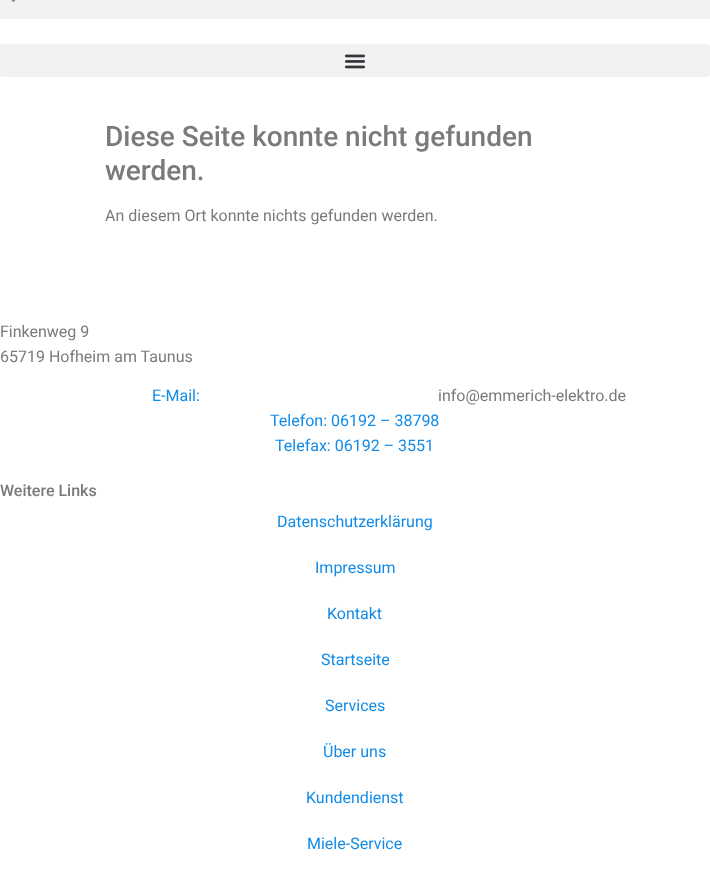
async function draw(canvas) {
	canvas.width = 710;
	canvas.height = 888;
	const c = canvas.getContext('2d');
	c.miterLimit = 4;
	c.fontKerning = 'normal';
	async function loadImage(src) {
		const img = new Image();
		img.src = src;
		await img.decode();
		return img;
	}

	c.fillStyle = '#fff';
	c.fillRect(0, 0, 710, 888);
	c.fillStyle = '#f1f2f3';
	c.fillRect(0, 0, 710, 19);
	c.drawImage(await loadImage('img1.png'), 11, 0, 4, 2);
	c.fillStyle = '#f2f2f2';
	c.beginPath();
	c.roundRect(0, 44, 710, 33, 3);
	c.fill();
	c.drawImage(await loadImage('img2.png'), 344, 54, 22, 15);
	c.font = '500 28px Roboto';
	c.fillStyle = '#7a7a7a';
	c.fillText('Diese Seite konnte nicht gefunden', 105, 146);
	c.fillText('werden.', 105, 180);
	c.font = '16px Roboto';
	for (const [text, x, y] of [
		['An diesem Ort konnte nichts gefunden werden.', 105, 221],
		['Finkenweg 9', 0, 337],
		['65719 Hofheim am Taunus', 0, 362],
	]) {
		c.fillText(text, x, y);
	}
	c.fillStyle = '#128be7';
	c.fillText('E-Mail:', 152, 401);
	c.fillStyle = '#7a7a7a';
	c.fillText('info@emmerich-elektro.de', 438, 401);
	c.fillStyle = '#128be7';
	c.fillText('Telefon: 06192 – 38798', 270, 426);
	c.fillText('Telefax: 06192 – 3551', 275, 451);
	c.font = '500 16px Roboto';
	c.fillStyle = '#7a7a7a';
	c.fillText('Weitere Links', 0, 496);
	c.font = '16px Roboto';
	c.fillStyle = '#128be7';
	for (const [text, x, y] of [
		['Datenschutzerklärung', 277, 527],
		['Impressum', 315, 573],
		['Kontakt', 327, 619],
		['Startseite', 321, 665],
		['Services', 325, 711],
		['Über uns', 323, 757],
		['Kundendienst', 306, 803],
		['Miele-Service', 307, 849],
	]) {
		c.fillText(text, x, y);
	}
}

draw(document.querySelector('canvas'));
